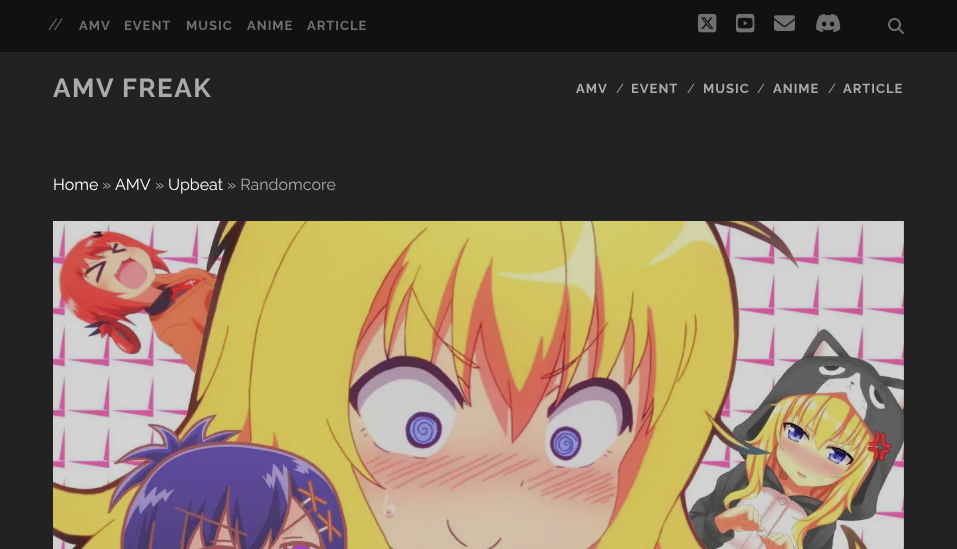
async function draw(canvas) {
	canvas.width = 957;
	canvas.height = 549;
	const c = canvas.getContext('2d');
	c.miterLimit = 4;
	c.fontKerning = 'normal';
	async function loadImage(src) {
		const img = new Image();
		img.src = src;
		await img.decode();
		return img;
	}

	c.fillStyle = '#222';
	c.fillRect(0, 0, 957, 549);
	c.fillStyle = '#111';
	c.fillRect(0, 0, 957, 52);
	c.font = '16px Raleway';
	c.fillStyle = '#707070';
	c.fillText('//', 48, 30);
	c.letterSpacing = '1px';
	c.font = 'bold 13px Raleway';
	for (const [text, x, y] of [
		['AMV', 79, 30],
		['EVENT', 124, 30],
		['MUSIC', 186, 30],
		['ANIME', 247, 30],
		['ARTICLE', 307, 30],
	]) {
		c.fillText(text, x, y);
	}
	c.drawImage(await loadImage('img1.png'), 698, 13, 19, 20);
	c.drawImage(await loadImage('img2.png'), 736, 13, 19, 20);
	c.drawImage(await loadImage('img3.png'), 774, 15, 21, 16);
	c.drawImage(await loadImage('img4.png'), 816, 14, 25, 19);
	c.drawImage(await loadImage('img5.png'), 888, 18, 16, 16);
	c.letterSpacing = '1.5px';
	c.font = 'bold 26px Raleway';
	c.fillStyle = '#aaa';
	c.fillText('AMV FREAK', 53, 97);
	c.letterSpacing = '1px';
	c.font = 'bold 13px Raleway';
	c.fillText('AMV', 576, 93);
	c.letterSpacing = '0px';
	c.font = '13px Raleway';
	c.fillText('/', 616, 93);
	c.letterSpacing = '1px';
	c.font = 'bold 13px Raleway';
	c.fillText('EVENT', 631, 93);
	c.letterSpacing = '0px';
	c.font = '13px Raleway';
	c.fillText('/', 687, 93);
	c.letterSpacing = '1px';
	c.font = 'bold 13px Raleway';
	c.fillText('MUSIC', 703, 93);
	c.letterSpacing = '0px';
	c.font = '13px Raleway';
	c.fillText('/', 757, 93);
	c.letterSpacing = '1px';
	c.font = 'bold 13px Raleway';
	c.fillText('ANIME', 773, 93);
	c.letterSpacing = '0px';
	c.font = '13px Raleway';
	c.fillText('/', 828, 93);
	c.letterSpacing = '1px';
	c.font = 'bold 13px Raleway';
	c.fillText('ARTICLE', 843, 93);
	c.letterSpacing = '0px';
	c.font = '16px Raleway';
	c.fillStyle = '#fff';
	c.fillText('Home', 53, 190);
	c.fillStyle = '#aaa';
	c.fillText('»', 102, 190);
	c.fillStyle = '#fff';
	c.fillText('AMV', 115, 190);
	c.fillStyle = '#aaa';
	c.fillText('»', 155, 190);
	c.fillStyle = '#fff';
	c.fillText('Upbeat', 168, 190);
	c.fillStyle = '#aaa';
	c.fillText('» Randomcore', 227, 190);
	c.drawImage(await loadImage('img6.png'), 53, 221, 851, 328);
}

draw(document.querySelector('canvas'));
